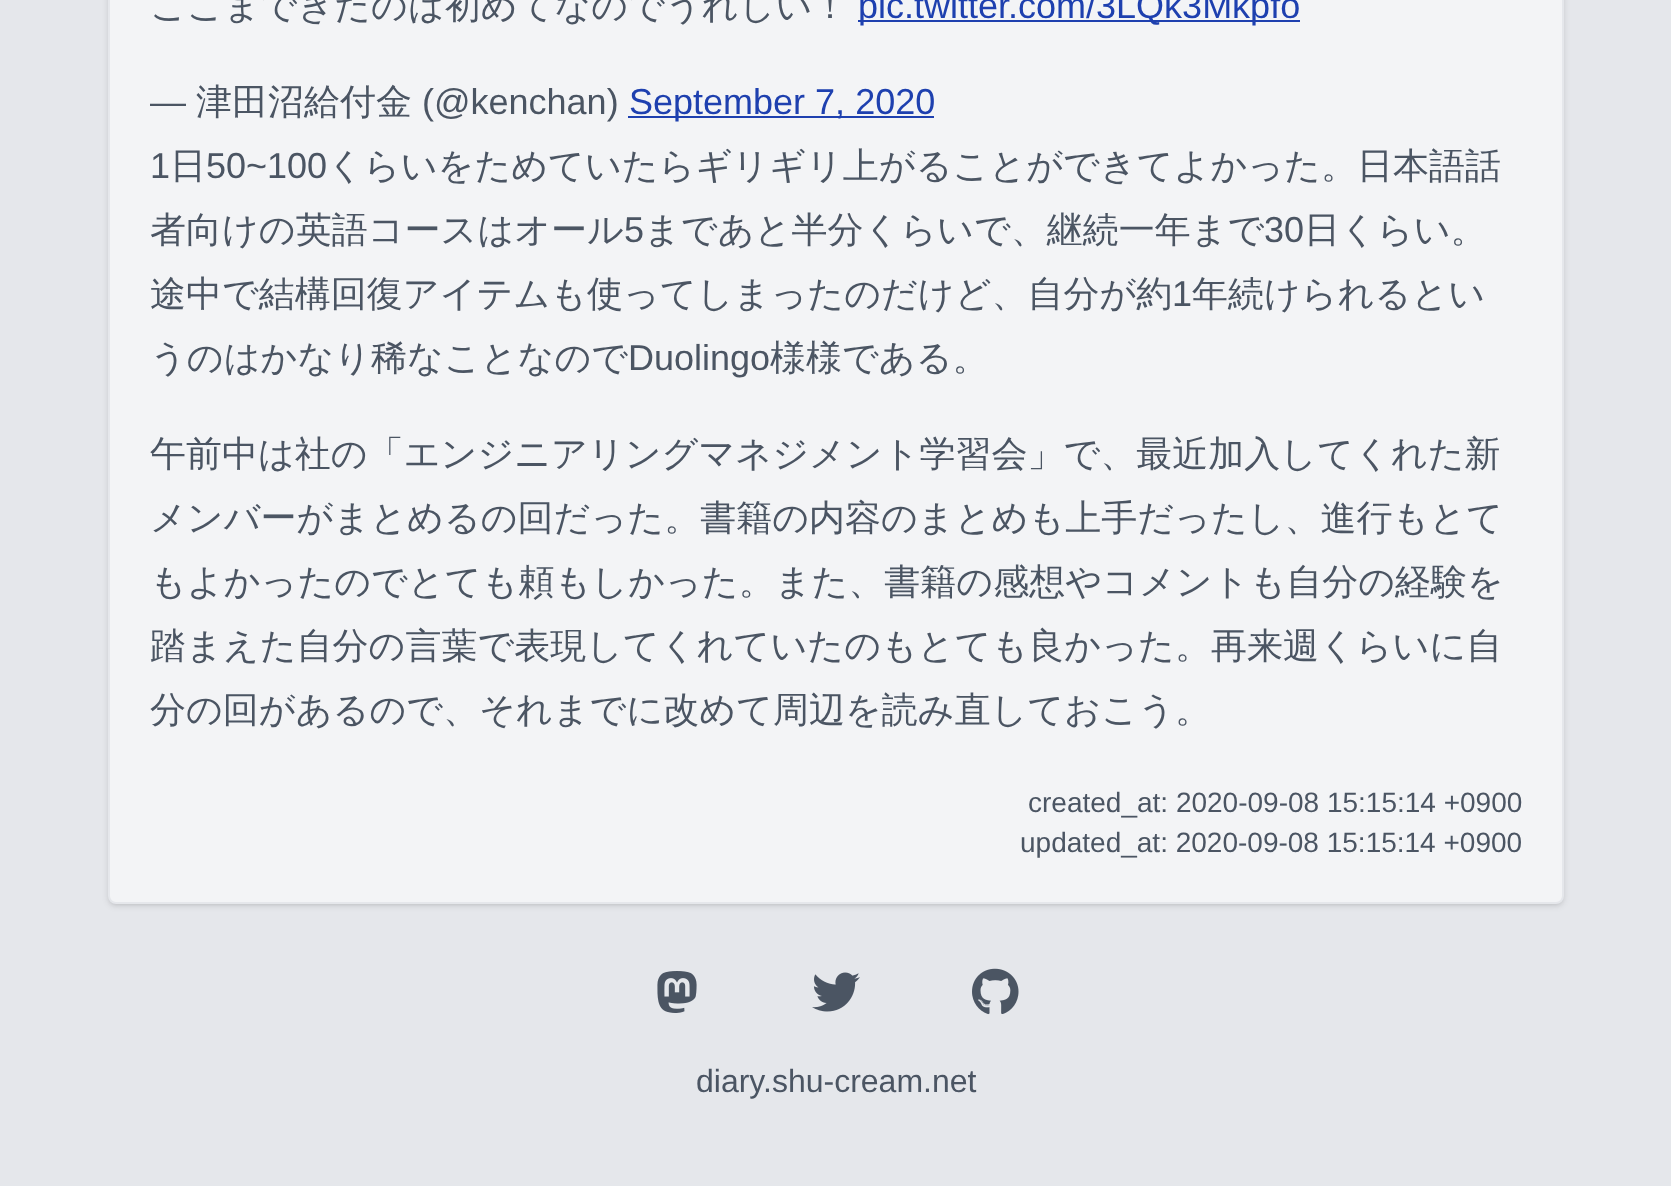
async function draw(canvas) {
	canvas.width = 1671;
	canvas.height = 1186;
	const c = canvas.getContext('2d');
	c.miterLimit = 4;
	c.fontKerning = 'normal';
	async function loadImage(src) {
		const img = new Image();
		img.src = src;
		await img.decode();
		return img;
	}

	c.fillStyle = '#e5e7eb';
	c.fillRect(0, 0, 1671, 1186);
	c.fillStyle = '#0000001a';
	c.filter = 'blur(2px)';
	c.beginPath();
	c.roundRect(110, -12, 1452, 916, 6);
	c.fill();
	c.filter = 'none';
	c.filter = 'blur(3px)';
	c.beginPath();
	c.roundRect(108, -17, 1456, 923, 8);
	c.fill();
	c.filter = 'none';
	c.fillStyle = '#f3f4f6';
	c.beginPath();
	c.roundRect(109, -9, 1454, 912, 7);
	c.fill();
	c.strokeStyle = '#e5e7eb';
	c.lineWidth = 2;
	c.stroke();
	c.font = '500 36px WenQuanYi Zen Hei';
	c.fillStyle = '#4b5563';
	c.fillText('ここまできたのは初めてなのでうれしい！', 150, 18);
	c.fillStyle = '#1e40af';
	c.fillRect(858, 20, 442, 2);
	c.font = '36px Liberation Sans';
	c.fillText('pic.twitter.com/3LQk3Mkpfo', 858, 18);
	c.fillStyle = '#4b5563';
	c.fillText('—', 150, 114);
	c.font = '500 36px WenQuanYi Zen Hei';
	c.fillText('津田沼給付金', 196, 114);
	c.font = '36px Liberation Sans';
	c.fillText('(@kenchan)', 422, 114);
	c.fillStyle = '#1e40af';
	c.fillRect(628, 116, 306, 2);
	c.fillText('September 7, 2020', 629, 114);
	c.fillStyle = '#4b5563';
	c.fillText('1', 150, 178);
	c.font = '500 36px WenQuanYi Zen Hei';
	c.fillText('日', 170, 178);
	c.font = '36px Liberation Sans';
	c.fillText('50~100', 206, 178);
	c.font = '500 36px WenQuanYi Zen Hei';
	c.fillText('くらいをためていたらギリギリ上がることができてよかった。日本語話', 327, 178);
	c.fillText('者向けの英語コースはオール', 150, 242);
	c.font = '36px Liberation Sans';
	c.fillText('5', 624, 242);
	c.font = '500 36px WenQuanYi Zen Hei';
	c.fillText('まであと半分くらいで、継続一年まで', 644, 242);
	c.font = '36px Liberation Sans';
	c.fillText('30', 1264, 242);
	c.font = '500 36px WenQuanYi Zen Hei';
	c.fillText('日くらい。', 1304, 242);
	c.fillText('途中で結構回復アイテムも使ってしまったのだけど、自分が約', 150, 306);
	c.font = '36px Liberation Sans';
	c.fillText('1', 1172, 306);
	c.font = '500 36px WenQuanYi Zen Hei';
	c.fillText('年続けられるとい', 1192, 306);
	c.fillText('うのはかなり稀なことなので', 150, 370);
	c.font = '36px Liberation Sans';
	c.fillText('Duolingo', 628, 370);
	c.font = '500 36px WenQuanYi Zen Hei';
	for (const [text, x, y] of [
		['様様である。', 770, 370],
		['午前中は社の「エンジニアリングマネジメント学習会」で、最近加入してくれた新', 150, 466],
		['メンバーがまとめるの回だった。書籍の内容のまとめも上手だったし、進行もとて', 150, 530],
		['もよかったのでとても頼もしかった。また、書籍の感想やコメントも自分の経験を', 150, 594],
		['踏まえた自分の言葉で表現してくれていたのもとても良かった。再来週くらいに自', 150, 658],
		['分の回があるので、それまでに改めて周辺を読み直しておこう。', 150, 722],
	]) {
		c.fillText(text, x, y);
	}
	c.font = '28px Liberation Sans';
	c.fillText('created_at: 2020-09-08 15:15:14 +0900', 1028, 812);
	c.fillText('updated_at: 2020-09-08 15:15:14 +0900', 1020, 852);
	c.drawImage(await loadImage('img1.png'), 657, 971, 40, 42);
	c.drawImage(await loadImage('img2.png'), 812, 972, 48, 40);
	c.drawImage(await loadImage('img3.png'), 972, 968, 47, 47);
	c.font = '32px Liberation Sans';
	c.fillText('diary.shu-cream.net', 696, 1092);
}

draw(document.querySelector('canvas'));
